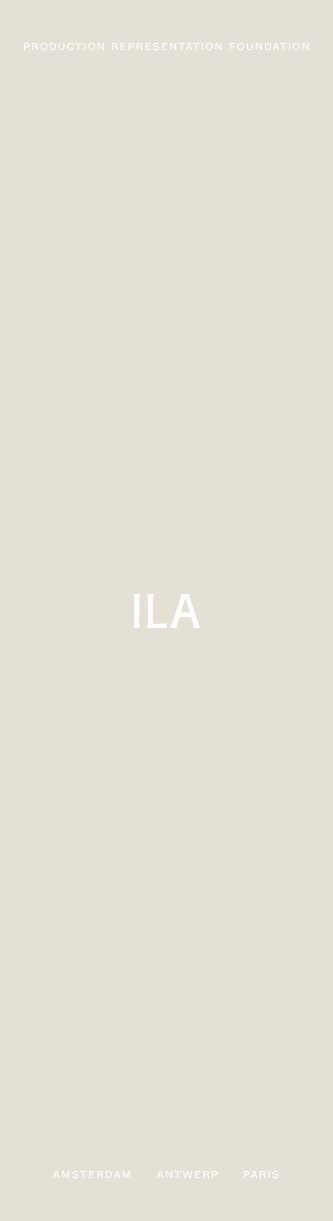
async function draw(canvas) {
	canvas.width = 333;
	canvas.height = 1221;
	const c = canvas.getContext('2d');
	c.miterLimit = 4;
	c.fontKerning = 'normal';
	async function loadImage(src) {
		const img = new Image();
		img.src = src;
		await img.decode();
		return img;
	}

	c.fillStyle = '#e5e0d5';
	c.fillRect(0, 0, 333, 1221);
	c.letterSpacing = '1.25px';
	c.font = '10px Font';
	c.fillStyle = '#fff';
	for (const [text, x, y] of [
		['PRODUCTION', 23, 50],
		['REPRESENTATION', 111, 50],
		['FOUNDATION', 229, 50],
		['AMSTERDAM', 53, 1178],
		['ANTWERP', 157, 1178],
		['PARIS', 243, 1178],
	]) {
		c.fillText(text, x, y);
	}
	c.drawImage(await loadImage('img1.png'), 133, 594, 67, 35);
}

draw(document.querySelector('canvas'));
